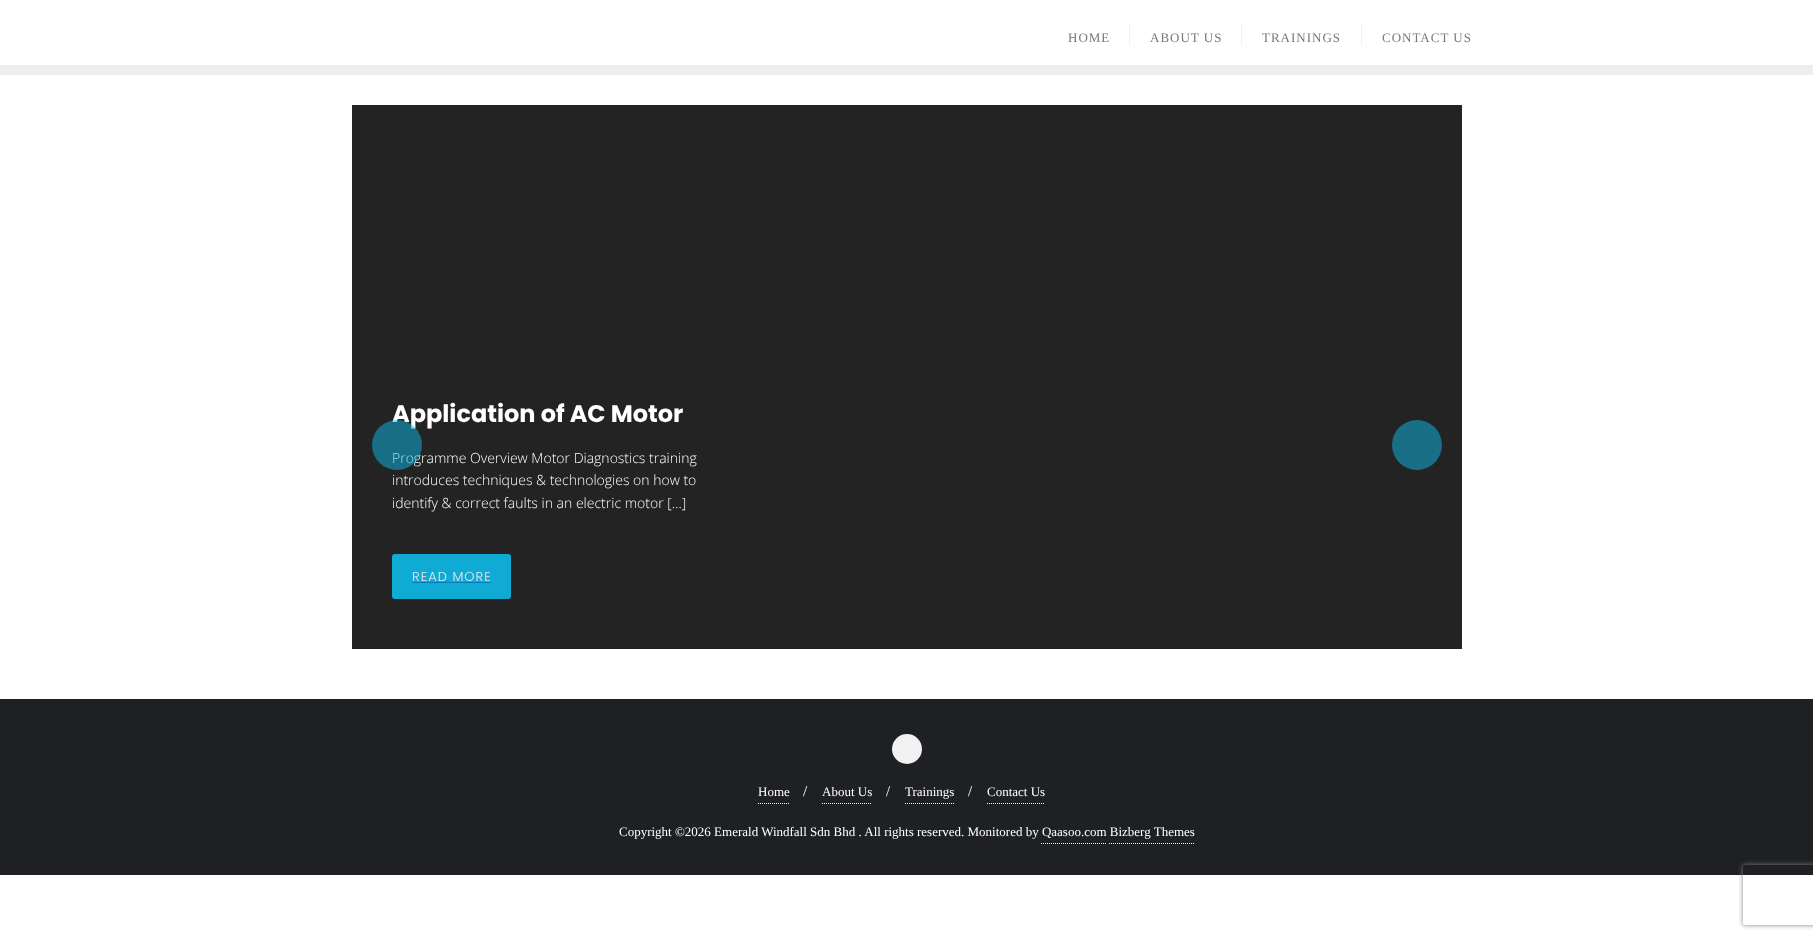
async function draw(canvas) {
	canvas.width = 1813;
	canvas.height = 939;
	const c = canvas.getContext('2d');
	c.miterLimit = 4;
	c.fontKerning = 'normal';

	c.fillStyle = '#fff';
	c.fillRect(0, 0, 1813, 939);
	c.fillStyle = '#eee';
	c.fillRect(0, 65, 1813, 10);
	c.letterSpacing = '1px';
	c.font = '13px Liberation Serif';
	c.fillStyle = '#777';
	c.fillText('HOME', 1068, 42);
	c.fillStyle = '#f1f1f1';
	c.fillRect(1129, 23, 1, 23);
	c.fillStyle = '#777';
	c.fillText('ABOUT US', 1150, 42);
	c.fillStyle = '#f1f1f1';
	c.fillRect(1241, 23, 1, 23);
	c.fillStyle = '#777';
	c.fillText('TRAININGS', 1262, 42);
	c.fillStyle = '#f1f1f1';
	c.fillRect(1361, 23, 1, 23);
	c.fillStyle = '#777';
	c.fillText('CONTACT US', 1382, 42);
	c.fillStyle = '#232323';
	c.fillRect(352, 105, 1110, 544);
	c.letterSpacing = '0px';
	c.font = 'bold 24px Poppins';
	c.fillStyle = '#fff';
	c.fillText('Application of AC Motor', 392, 422);
	c.font = '300 14px Open Sans';
	for (const [text, x, y] of [
		['Programme Overview Motor Diagnostics training', 392, 463],
		['introduces techniques & technologies on how to', 392, 485],
		['identify & correct faults in an electric motor […]', 392, 508],
	]) {
		c.fillText(text, x, y);
	}
	c.fillStyle = '#0fabd4';
	c.beginPath();
	c.roundRect(392, 554, 119, 45, 3);
	c.fill();
	c.letterSpacing = '1px';
	c.font = '300 13px Poppins';
	c.fillStyle = '#e9e9e9';
	c.fillText('READ MORE', 412, 581);
	c.fillStyle = '#047ebb';
	c.fillRect(412, 582, 79, 1);
	c.fillStyle = '#0dbae880';
	c.beginPath();
	c.arc(397, 445, 25, 0, 2 * Math.PI);
	c.fill();
	c.fillStyle = '#186f86';
	c.beginPath();
	c.arc(1417, 445, 25, 0, 2 * Math.PI);
	c.fill();
	c.fillStyle = '#1f2024';
	c.fillRect(0, 699, 1813, 176);
	c.fillStyle = '#f1f1f1';
	c.beginPath();
	c.arc(907, 749, 15, 0, 2 * Math.PI);
	c.fill();
	c.beginPath();
	c.moveTo(758, 803.5);
	c.lineTo(790, 803.5);
	c.strokeStyle = '#fff';
	c.setLineDash([1, 1]);
	c.stroke();
	c.letterSpacing = '0px';
	c.font = '13px Liberation Serif';
	c.fillStyle = '#fff';
	c.fillText('Home', 758, 796);
	c.font = '15px Liberation Serif';
	c.fillText('/', 803, 796);
	c.beginPath();
	c.moveTo(822, 803.5);
	c.lineTo(872, 803.5);
	c.stroke();
	c.font = '13px Liberation Serif';
	c.fillText('About Us', 822, 796);
	c.font = '15px Liberation Serif';
	c.fillText('/', 886, 796);
	c.beginPath();
	c.moveTo(905, 803.5);
	c.lineTo(954, 803.5);
	c.stroke();
	c.font = '13px Liberation Serif';
	c.fillText('Trainings', 905, 796);
	c.font = '15px Liberation Serif';
	c.fillText('/', 968, 796);
	c.beginPath();
	c.moveTo(987, 803.5);
	c.lineTo(1045, 803.5);
	c.stroke();
	c.font = '13px Liberation Serif';
	c.fillText('Contact Us', 987, 796);
	c.fillText('Copyright ©2026 Emerald Windfall Sdn Bhd . All rights reserved. Monitored by Qaasoo.com Bizberg Themes', 619, 836);
	c.beginPath();
	c.moveTo(1041, 843.5);
	c.lineTo(1106, 843.5);
	c.stroke();
	c.beginPath();
	c.moveTo(1109, 843.5);
	c.lineTo(1194, 843.5);
	c.stroke();
	c.save();
	c.beginPath();
	c.moveTo(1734, 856);
	c.lineTo(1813, 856);
	c.lineTo(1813, 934);
	c.lineTo(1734, 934);
	c.closePath();
	c.moveTo(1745, 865);
	c.lineTo(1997, 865);
	c.bezierCurveTo(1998, 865, 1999, 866, 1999, 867);
	c.lineTo(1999, 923);
	c.bezierCurveTo(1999, 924, 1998, 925, 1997, 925);
	c.lineTo(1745, 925);
	c.bezierCurveTo(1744, 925, 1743, 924, 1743, 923);
	c.lineTo(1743, 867);
	c.bezierCurveTo(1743, 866, 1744, 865, 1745, 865);
	c.closePath();
	c.clip('evenodd');
	c.fillStyle = '#808080';
	c.filter = 'blur(2.5px)';
	c.beginPath();
	c.roundRect(1743, 865, 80, 60, 2);
	c.fill();
	c.filter = 'none';
	c.restore();
}

draw(document.querySelector('canvas'));
